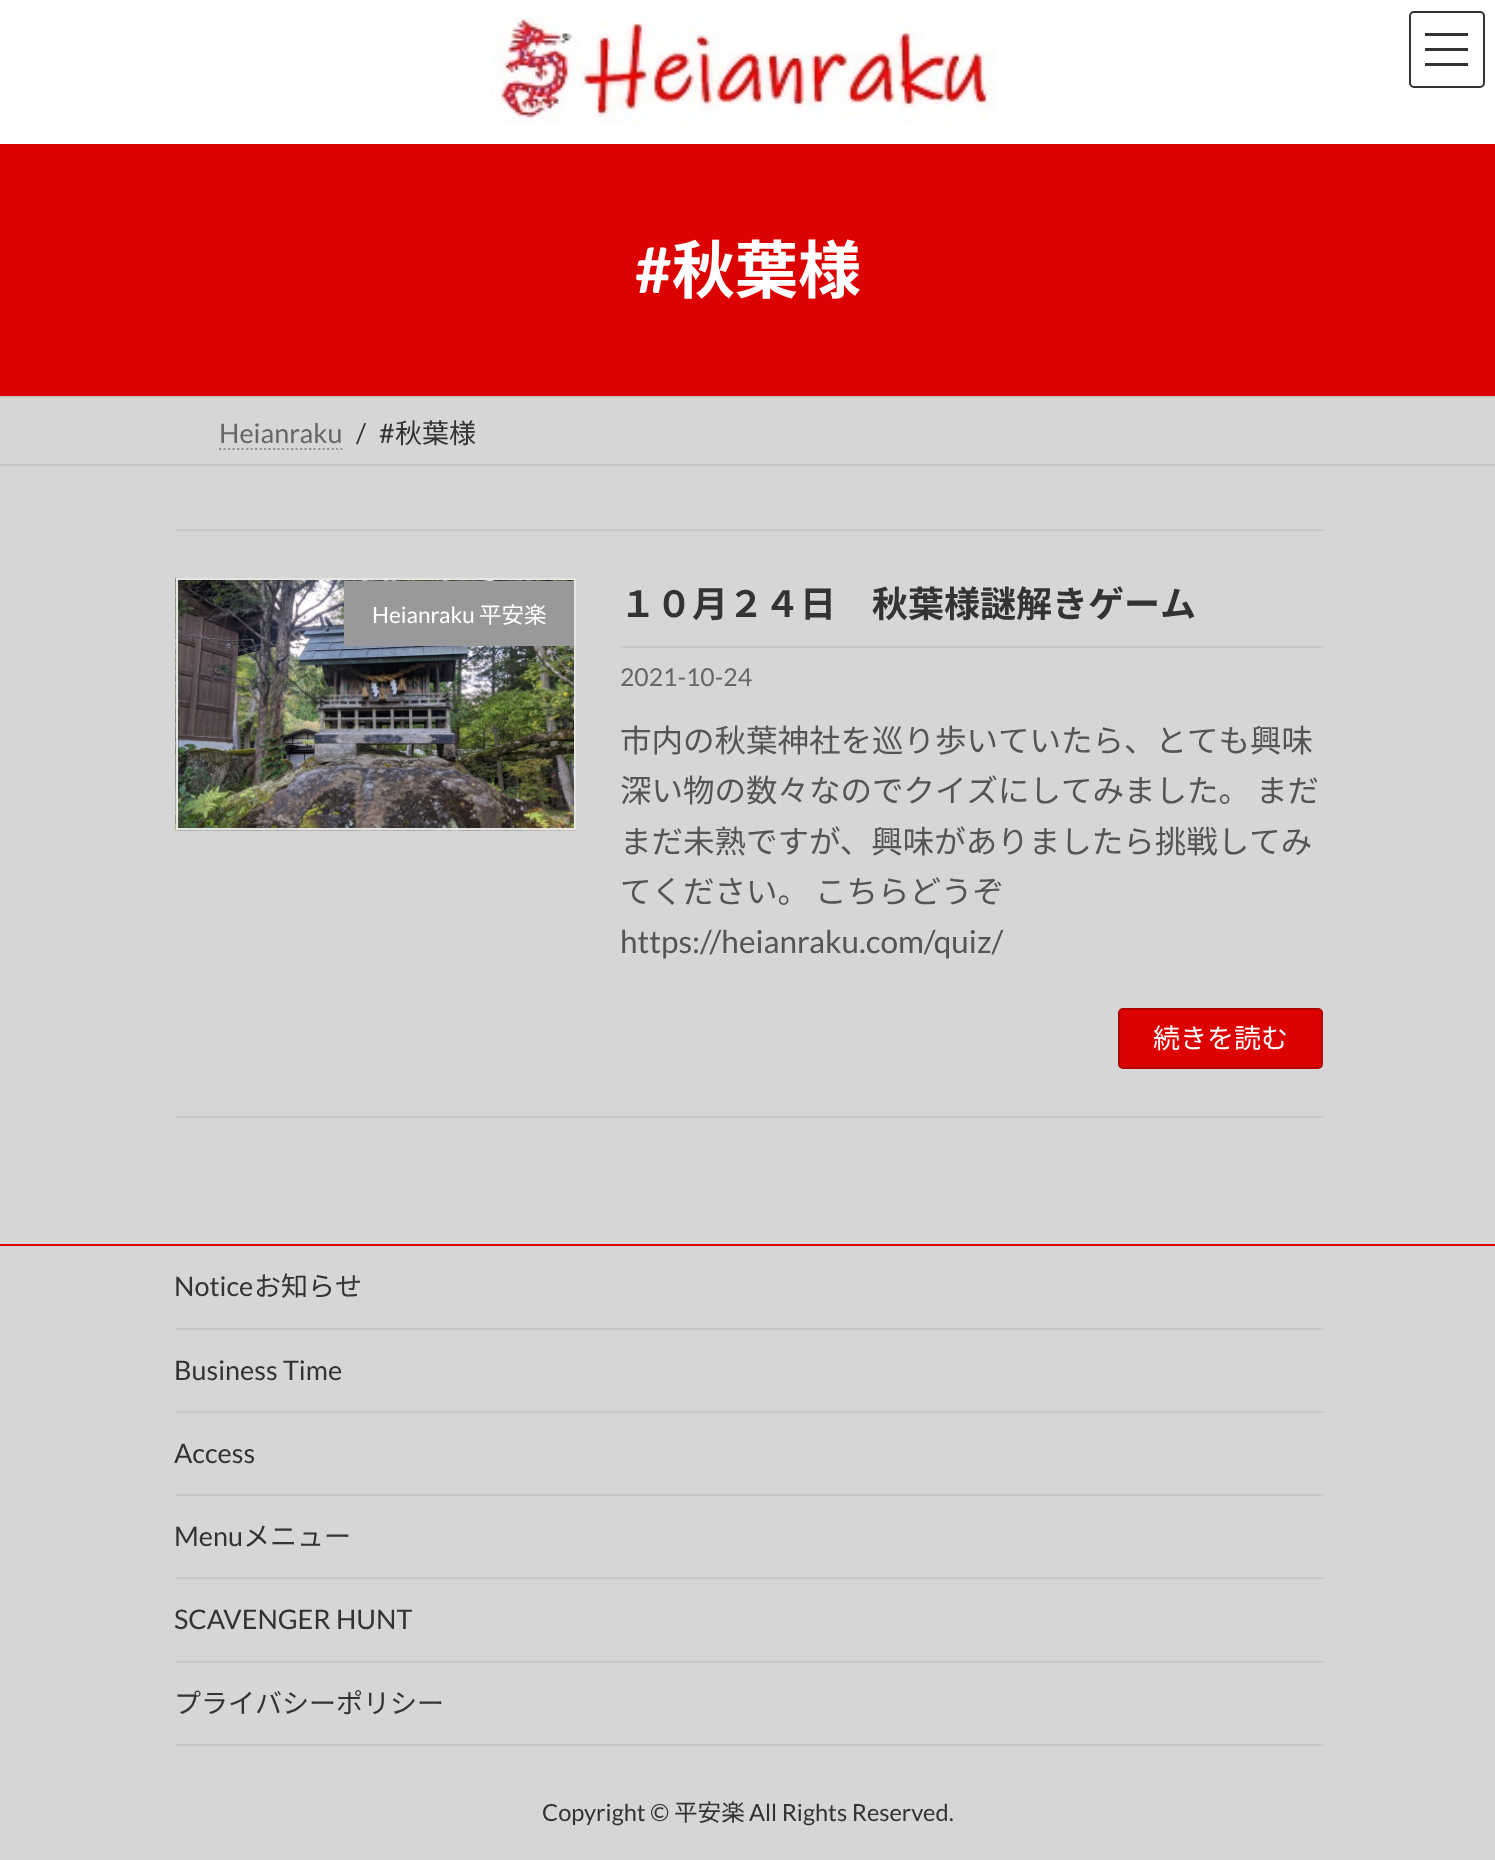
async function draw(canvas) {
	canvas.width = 1495;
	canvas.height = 1860;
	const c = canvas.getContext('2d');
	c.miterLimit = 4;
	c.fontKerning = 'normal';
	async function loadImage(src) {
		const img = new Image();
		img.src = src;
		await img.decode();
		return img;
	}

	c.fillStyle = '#d6d6d6';
	c.fillRect(0, 0, 1495, 1860);
	c.fillStyle = '#dd0202';
	c.fillRect(0, 144, 1495, 252);
	c.fillStyle = '#0000000d';
	c.filter = 'blur(3.5px)';
	c.beginPath();
	c.rect(0, 2, 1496, 144);
	c.fill();
	c.filter = 'none';
	c.fillStyle = '#fff';
	c.fillRect(0, 0, 1495, 144);
	c.drawImage(await loadImage('img1.png'), 490, 16, 505, 109);
	for (const [x, y, w, h, color] of [
		[1425, 33, 43, 3, '#333'],
		[1425, 48, 43, 3, '#333'],
		[1425, 63, 43, 3, '#333'],
	]) {
		c.fillStyle = color;
		c.fillRect(x, y, w, h);
	}
	c.beginPath();
	c.roundRect(1410, 12, 74, 75, 4);
	c.strokeStyle = '#333';
	c.lineWidth = 2;
	c.stroke();
	c.font = 'bold 63px Lato';
	c.fillStyle = '#fff';
	c.fillText('#', 635, 293);
	c.font = 'bold 63px Noto Sans JP';
	c.fillText('秋葉様', 672, 293);
	c.fillStyle = '#c9c9c9';
	c.fillRect(0, 396, 1495, 2);
	c.fillRect(0, 464, 1495, 2);
	c.font = '27px Lato';
	c.fillStyle = '#666';
	c.fillText('Heianraku', 219, 443);
	c.beginPath();
	c.moveTo(219, 449);
	c.lineTo(342.5, 449);
	c.strokeStyle = '#969696';
	c.lineWidth = 2.2;
	c.setLineDash([2.25, 2.25]);
	c.stroke();
	c.fillStyle = '#333';
	c.fillText('/', 356, 443);
	c.fillText('#', 379, 443);
	c.font = '27px Noto Sans JP';
	c.fillText('秋葉様', 395, 443);
	c.fillStyle = '#c9c9c9';
	c.fillRect(176, 529, 1147, 2);
	c.fillRect(176, 1116, 1147, 2);
	c.drawImage(await loadImage('img2.png'), 175, 578, 401, 253);
	c.strokeStyle = '#e5e5e5';
	c.lineWidth = 2;
	c.setLineDash([]);
	c.strokeRect(177, 579, 398, 250);
	c.fillStyle = '#999';
	c.fillRect(344, 581, 230, 65);
	c.font = '22.5px Lato';
	c.fillStyle = '#fff';
	c.fillText('Heianraku', 372, 623);
	c.font = '22.5px Noto Sans JP';
	c.fillText('平安楽', 479, 623);
	c.fillStyle = '#c9c9c9';
	c.fillRect(621, 646, 702, 2);
	c.font = 'bold 36px Noto Sans JP';
	c.fillStyle = '#333';
	c.fillText('１０月２４日　秋葉様謎解きゲーム', 620, 617);
	c.font = '24.75px Lato';
	c.fillStyle = '#666';
	c.fillText('2021-10-24', 620, 686);
	c.font = '31.5px Noto Sans JP';
	c.fillStyle = '#545454';
	c.fillText('市内の秋葉神社を巡り歩いていたら、とても興味', 620, 752);
	c.wordSpacing = '-1px';
	c.fillText('深い物の数々なのでクイズにしてみました。 まだ', 620, 802);
	c.wordSpacing = '0px';
	c.fillText('まだ未熟ですが、興味がありましたら挑戦してみ', 620, 853);
	c.wordSpacing = '-1px';
	c.fillText('てください。 こちらどうぞ', 620, 903);
	c.wordSpacing = '0px';
	c.font = '31.5px Lato';
	c.fillText('https://heianraku.com/quiz/', 620, 953);
	c.fillStyle = '#dd0202';
	c.beginPath();
	c.roundRect(1119, 1009, 203, 59, 4);
	c.fill();
	c.strokeStyle = '#b10202';
	c.stroke();
	c.font = '27px Noto Sans JP';
	c.fillStyle = '#fff';
	c.fillText('続きを読む', 1153, 1048);
	c.fillStyle = '#dd0202';
	c.fillRect(0, 1244, 1495, 2);
	c.fillStyle = '#c9c9c9';
	c.fillRect(176, 1328, 1147, 2);
	c.font = '27px Lato';
	c.fillStyle = '#333';
	c.fillText('Notice', 174, 1296);
	c.font = '27px Noto Sans JP';
	c.fillText('お知らせ', 254, 1296);
	c.fillStyle = '#c9c9c9';
	c.fillRect(176, 1411, 1147, 2);
	c.font = '27px Lato';
	c.fillStyle = '#333';
	c.fillText('Business Time', 174, 1380);
	c.fillStyle = '#c9c9c9';
	c.fillRect(176, 1494, 1147, 2);
	c.fillStyle = '#333';
	c.fillText('Access', 174, 1463);
	c.fillStyle = '#c9c9c9';
	c.fillRect(176, 1577, 1147, 2);
	c.fillStyle = '#333';
	c.fillText('Menu', 174, 1546);
	c.font = '27px Noto Sans JP';
	c.fillText('メニュー', 243, 1546);
	c.fillStyle = '#c9c9c9';
	c.fillRect(176, 1661, 1147, 2);
	c.font = '27px Lato';
	c.fillStyle = '#333';
	c.fillText('SCAVENGER HUNT', 174, 1629);
	c.fillStyle = '#c9c9c9';
	c.fillRect(176, 1744, 1147, 2);
	c.font = '27px Noto Sans JP';
	c.fillStyle = '#333';
	c.fillText('プライバシーポリシー', 174, 1713);
	c.font = '23.6px Lato';
	c.fillText('Copyright ©', 542, 1821);
	c.font = '23.6px Noto Sans JP';
	c.fillText('平安楽', 674, 1821);
	c.font = '23.6px Lato';
	c.fillText('All Rights Reserved.', 749, 1821);
}

draw(document.querySelector('canvas'));
